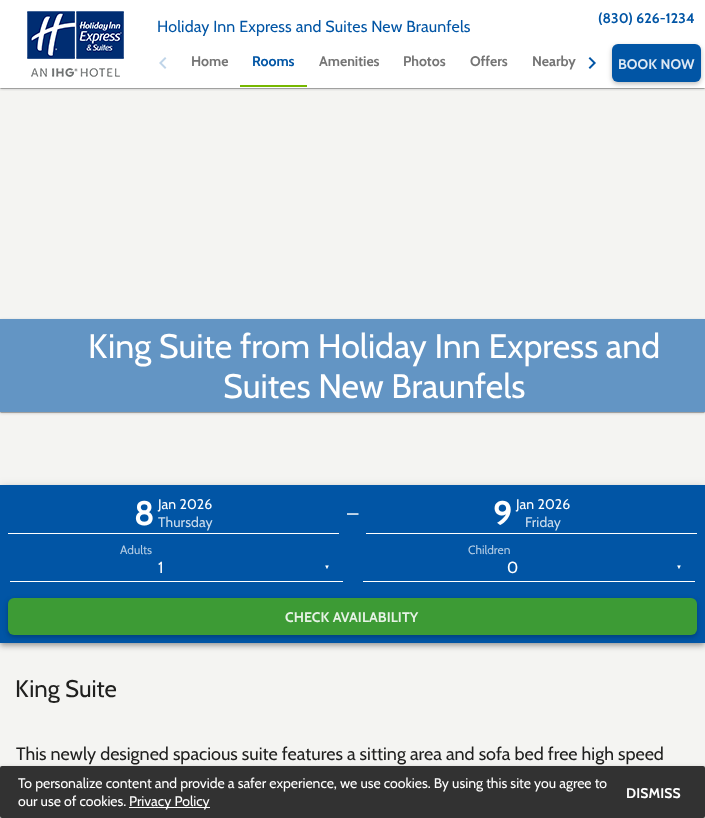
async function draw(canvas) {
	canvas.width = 705;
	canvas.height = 818;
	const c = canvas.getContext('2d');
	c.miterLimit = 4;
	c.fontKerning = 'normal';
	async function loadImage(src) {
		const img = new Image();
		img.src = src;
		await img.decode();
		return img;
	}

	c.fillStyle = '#fff';
	c.fillRect(0, 0, 705, 818);
	c.fillStyle = '#f4f4f2';
	c.fillRect(0, 88, 705, 730);
	c.save();
	c.beginPath();
	c.rect(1, 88, 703, 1);
	c.clip();
	c.fillStyle = '#0000001f';
	c.filter = 'blur(0.5px)';
	c.beginPath();
	c.rect(1, 3, 703, 86);
	c.fill();
	c.filter = 'none';
	c.restore();
	c.save();
	c.beginPath();
	c.rect(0, 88, 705, 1);
	c.clip();
	c.fillStyle = '#00000024';
	c.filter = 'blur(0.5px)';
	c.beginPath();
	c.rect(0, 1, 705, 88);
	c.fill();
	c.filter = 'none';
	c.restore();
	c.save();
	c.beginPath();
	c.rect(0, 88, 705, 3);
	c.clip();
	c.fillStyle = '#00000033';
	c.filter = 'blur(1.5px)';
	c.beginPath();
	c.rect(0, 1, 705, 88);
	c.fill();
	c.filter = 'none';
	c.restore();
	c.drawImage(await loadImage('img1.png'), 27, 11, 97, 66);
	c.letterSpacing = '0.1px';
	c.font = 'bold 14px Cabin';
	c.fillStyle = '#0155a5';
	c.fillText('(830) 626-1234', 598, 23);
	c.letterSpacing = '0.15px';
	c.font = '16px Cabin';
	c.fillText('Holiday Inn Express and Suites New Braunfels', 157, 32);
	c.drawImage(await loadImage('img2.png'), 159, 57, 8, 12);
	c.letterSpacing = '0px';
	c.font = 'bold 14px Cabin';
	c.fillStyle = '#757575';
	c.fillText('Home', 191, 66);
	c.fillStyle = '#0155a5';
	c.fillText('Rooms', 252, 66);
	c.fillStyle = '#757575';
	for (const [text, x, y] of [
		['Amenities', 319, 66],
		['Photos', 403, 66],
		['Offers', 470, 66],
		['Nearby', 532, 66],
	]) {
		c.fillText(text, x, y);
	}
	c.fillStyle = '#77b800';
	c.fillRect(240, 85, 67, 2);
	c.drawImage(await loadImage('img3.png'), 588, 57, 8, 12);
	c.fillStyle = '#00000042';
	c.filter = 'blur(2.5px)';
	c.beginPath();
	c.roundRect(612, 46, 89, 38, 6);
	c.fill();
	c.filter = 'none';
	c.fillStyle = '#0155a5';
	c.beginPath();
	c.roundRect(612, 44, 89, 38, 6);
	c.fill();
	c.letterSpacing = '0.1px';
	c.fillStyle = '#dee9f3';
	c.fillText('BOOK NOW', 618, 69);
	c.save();
	c.beginPath();
	c.rect(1, 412, 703, 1);
	c.clip();
	c.fillStyle = '#0000001f';
	c.filter = 'blur(0.5px)';
	c.beginPath();
	c.rect(1, 322, 703, 91);
	c.fill();
	c.filter = 'none';
	c.restore();
	c.save();
	c.beginPath();
	c.rect(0, 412, 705, 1);
	c.clip();
	c.fillStyle = '#00000024';
	c.filter = 'blur(0.5px)';
	c.beginPath();
	c.rect(0, 320, 705, 93);
	c.fill();
	c.filter = 'none';
	c.restore();
	c.save();
	c.beginPath();
	c.moveTo(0, 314);
	c.lineTo(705, 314);
	c.lineTo(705, 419);
	c.lineTo(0, 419);
	c.closePath();
	c.moveTo(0, 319);
	c.lineTo(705, 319);
	c.lineTo(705, 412);
	c.lineTo(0, 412);
	c.closePath();
	c.clip('evenodd');
	c.fillStyle = '#00000033';
	c.filter = 'blur(1.5px)';
	c.beginPath();
	c.rect(0, 320, 705, 93);
	c.fill();
	c.filter = 'none';
	c.restore();
	c.fillStyle = '#0155a599';
	c.fillRect(0, 319, 705, 93);
	c.letterSpacing = '0px';
	c.font = '34px Cabin';
	c.fillStyle = '#fff';
	c.fillText('King Suite from Holiday Inn Express and', 88, 358);
	c.fillText('Suites New Braunfels', 223, 398);
	c.fillStyle = '#0000001f';
	c.filter = 'blur(5px)';
	c.beginPath();
	c.rect(0, 486, 705, 158);
	c.fill();
	c.filter = 'none';
	c.fillStyle = '#00000024';
	c.filter = 'blur(2.5px)';
	c.beginPath();
	c.rect(0, 489, 705, 158);
	c.fill();
	c.filter = 'none';
	c.fillStyle = '#00000033';
	c.filter = 'blur(2px)';
	c.beginPath();
	c.rect(1, 488, 703, 156);
	c.fill();
	c.filter = 'none';
	c.fillStyle = '#0155a5';
	c.fillRect(0, 485, 705, 158);
	c.fillStyle = '#fff';
	c.fillRect(8, 533, 331, 1);
	c.font = 'bold 34px Cabin';
	c.fillText('8', 134, 525);
	c.letterSpacing = '0.1px';
	c.font = '14px Cabin';
	c.fillText('Jan 2026', 158, 509);
	c.fillStyle = '#ccdded';
	c.fillText('Thursday', 158, 527);
	c.letterSpacing = '0px';
	c.font = '16px Cabin';
	c.fillStyle = '#fff';
	c.fillText('—', 347, 519);
	c.fillRect(366, 533, 331, 1);
	c.font = 'bold 34px Cabin';
	c.fillText('9', 493, 525);
	c.letterSpacing = '0.1px';
	c.font = '14px Cabin';
	c.fillText('Jan 2026', 516, 509);
	c.fillStyle = '#ccdded';
	c.fillText('Friday', 525, 527);
	c.letterSpacing = '0px';
	c.font = '12px Cabin';
	c.fillStyle = '#b3cce4';
	c.fillText('Adults', 120, 554);
	c.fillStyle = '#fff';
	c.fillRect(10, 581, 333, 1);
	c.font = '16px Cabin';
	c.fillText('1', 158, 573);
	c.letterSpacing = '6px';
	c.font = '6px Liberation Sans';
	c.fillText('▼', 324, 569);
	c.letterSpacing = '0px';
	c.font = '12px Cabin';
	c.fillStyle = '#b3cce4';
	c.fillText('Children', 468, 554);
	c.fillStyle = '#fff';
	c.fillRect(363, 581, 332, 1);
	c.font = '16px Cabin';
	c.fillText('0', 507, 573);
	c.letterSpacing = '6px';
	c.font = '6px Liberation Sans';
	c.fillText('▼', 676, 569);
	c.fillStyle = '#00000042';
	c.filter = 'blur(2.5px)';
	c.beginPath();
	c.roundRect(8, 600, 689, 37, 6);
	c.fill();
	c.filter = 'none';
	c.fillStyle = '#3d9b35';
	c.beginPath();
	c.roundRect(8, 598, 689, 37, 6);
	c.fill();
	c.letterSpacing = '0.1px';
	c.font = 'bold 14px Cabin';
	c.fillStyle = '#e6f2e5';
	c.fillText('CHECK AVAILABILITY', 285, 622);
	c.letterSpacing = '0px';
	c.font = '24px Cabin';
	c.fillStyle = '#20201f';
	c.fillText('King Suite', 15, 697);
	c.font = '18px Cabin';
	c.fillText('This newly designed spacious suite features a sitting area and sofa bed free high speed', 16, 760);
	c.fillStyle = '#00000042';
	c.filter = 'blur(2.5px)';
	c.beginPath();
	c.roundRect(0, 768, 705, 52, 2);
	c.fill();
	c.filter = 'none';
	c.fillStyle = '#323232';
	c.beginPath();
	c.roundRect(0, 766, 705, 52, 2);
	c.fill();
	c.font = '14px Cabin';
	c.fillStyle = '#fff';
	c.fillText('To personalize content and provide a safer experience, we use cookies. By using this site you agree to', 18, 788);
	c.fillText('our use of cookies.', 18, 806);
	c.fillRect(129, 807, 81, 1);
	c.fillText('Privacy Policy', 129, 806);
	c.letterSpacing = '0.1px';
	c.font = 'bold 14px Cabin';
	c.fillText('DISMISS', 626, 798);
}

draw(document.querySelector('canvas'));
